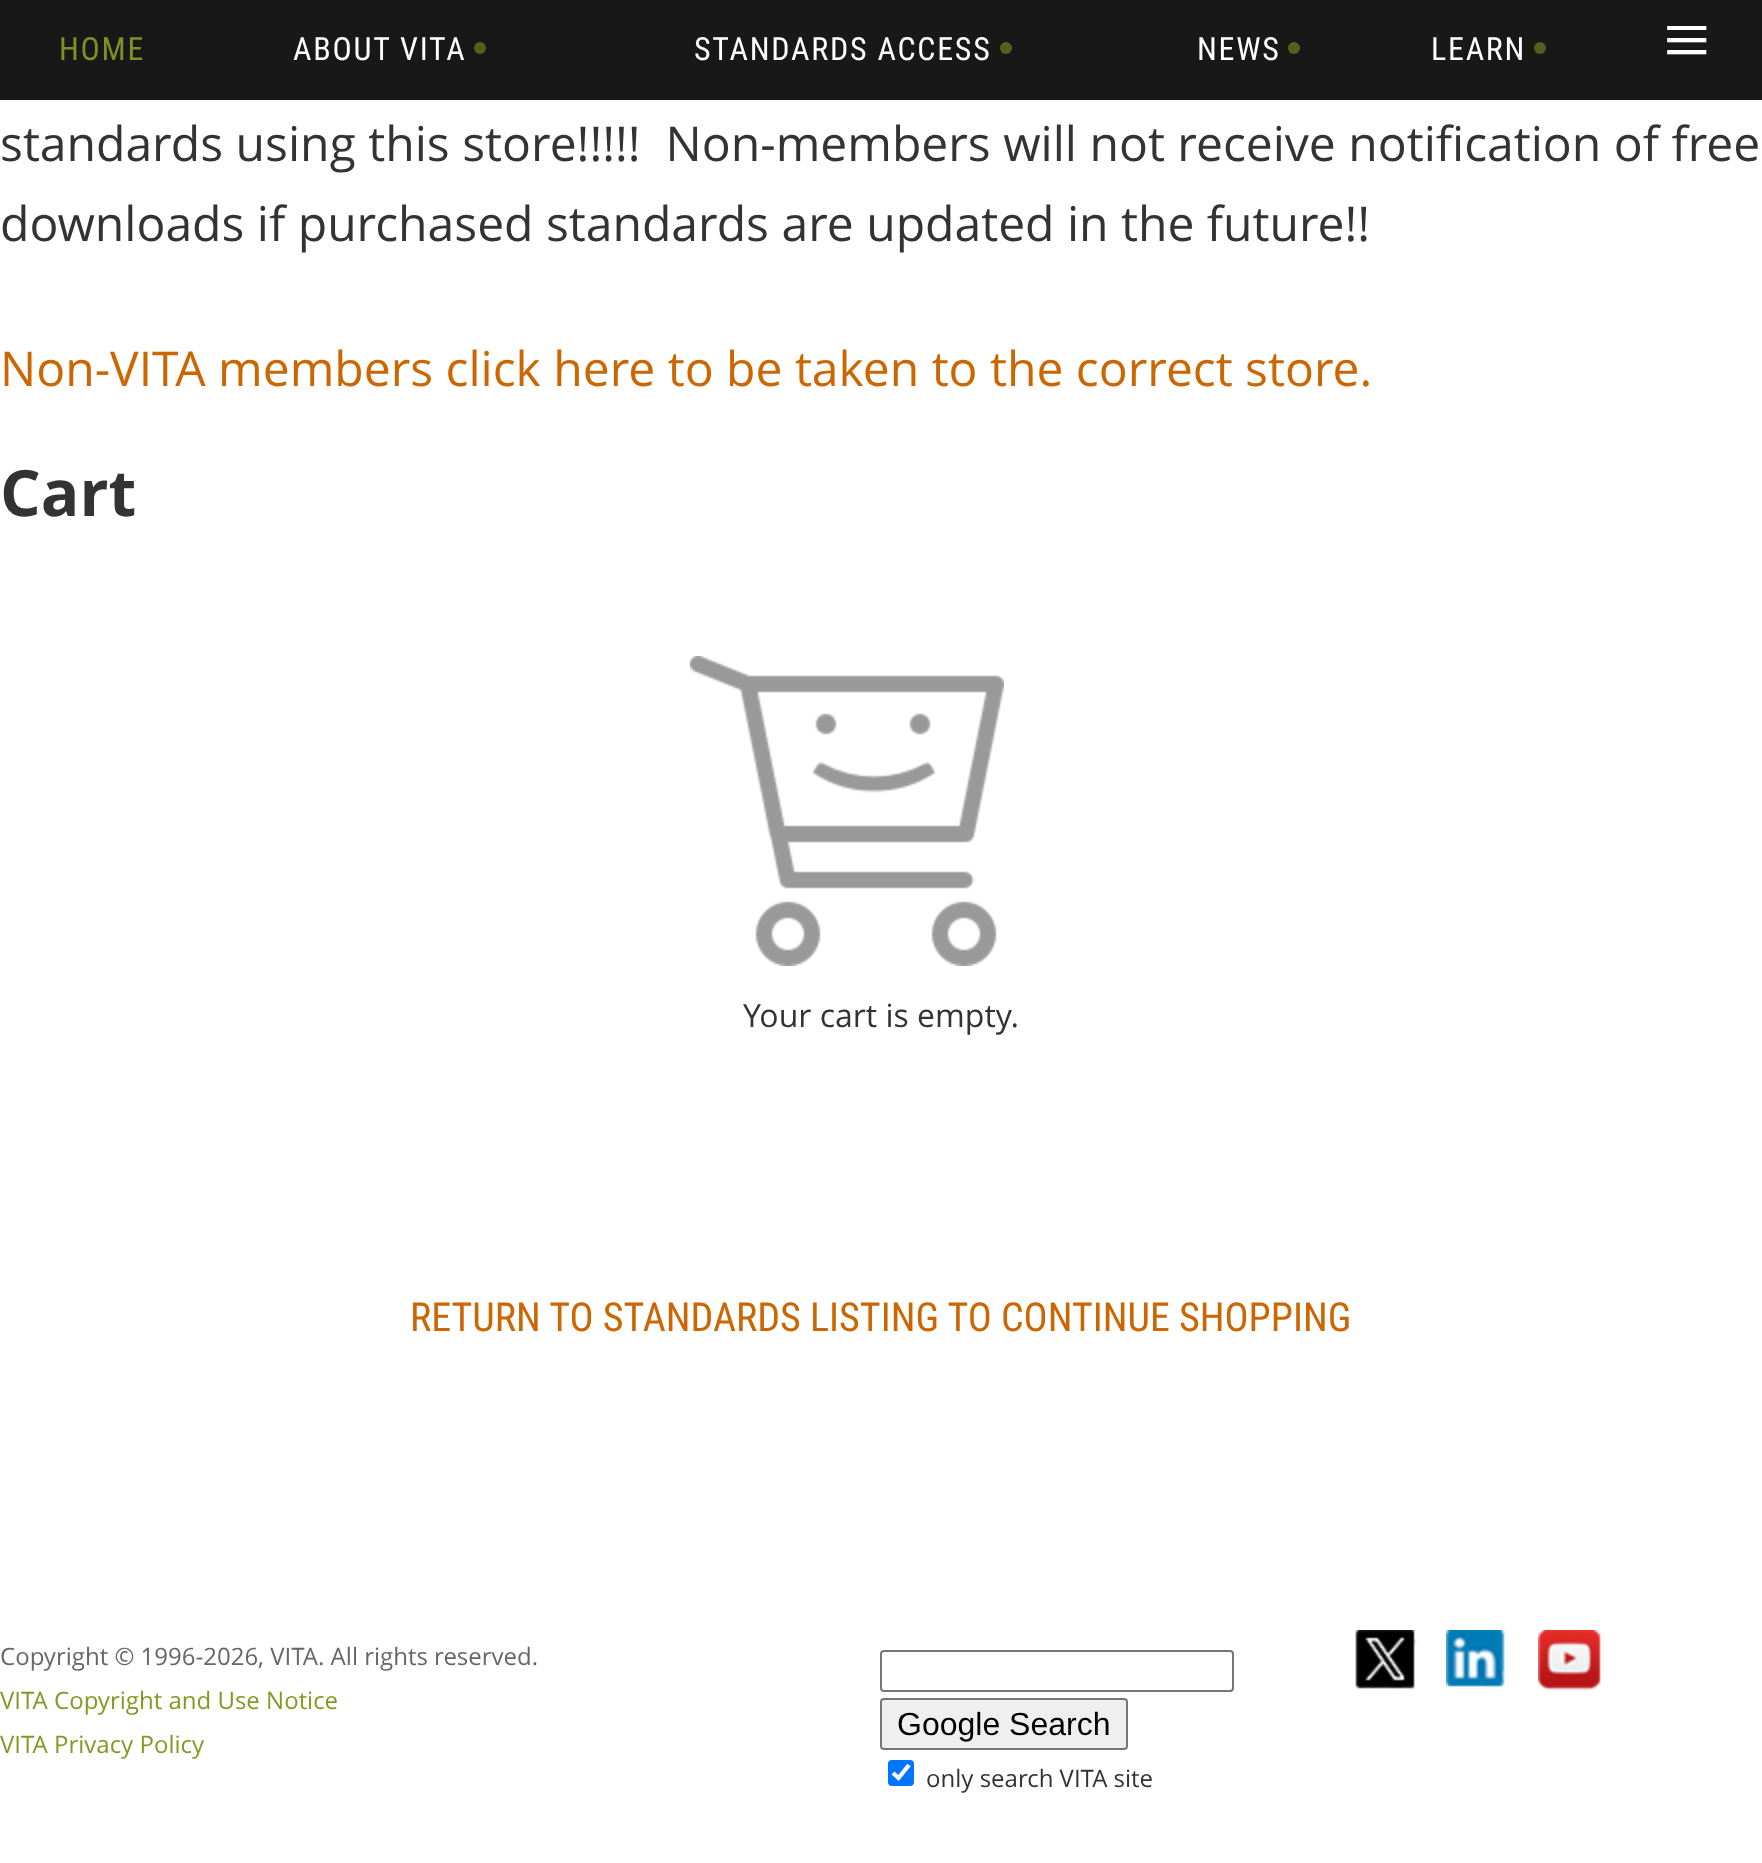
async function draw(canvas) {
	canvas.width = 1762;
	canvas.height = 1863;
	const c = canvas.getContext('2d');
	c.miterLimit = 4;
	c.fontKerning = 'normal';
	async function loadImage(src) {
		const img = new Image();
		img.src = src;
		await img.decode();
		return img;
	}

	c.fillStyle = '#fff';
	c.fillRect(0, 0, 1762, 1863);
	c.fillStyle = '#171817';
	c.fillRect(0, 0, 1762, 100);
	c.letterSpacing = '1.75px';
	c.font = '32px Roboto Condensed';
	c.fillStyle = '#7c9023';
	c.fillText('HOME', 59, 60);
	c.fillStyle = '#fff';
	c.fillText('ABOUT VITA', 293, 60);
	c.fillStyle = '#54611e';
	c.beginPath();
	c.arc(480, 48, 6, 0, 2 * Math.PI);
	c.fill();
	c.fillStyle = '#fff';
	c.fillText('STANDARDS ACCESS', 694, 60);
	c.fillStyle = '#54611e';
	c.beginPath();
	c.arc(1006, 48, 6, 0, 2 * Math.PI);
	c.fill();
	c.fillStyle = '#fff';
	c.fillText('NEWS', 1197, 60);
	c.fillStyle = '#54611e';
	c.beginPath();
	c.arc(1294, 48, 6, 0, 2 * Math.PI);
	c.fill();
	c.fillStyle = '#fff';
	c.fillText('LEARN', 1431, 60);
	c.fillStyle = '#54611e';
	c.beginPath();
	c.arc(1540, 48, 6, 0, 2 * Math.PI);
	c.fill();
	c.font = '84px Liberation Serif';
	c.fillStyle = '#fff';
	c.fillText('≡', 1663, 68);
	c.letterSpacing = '0px';
	c.font = '48px Open Sans';
	c.fillStyle = '#333';
	c.fillText('standards using this store!!!!!  Non-members will not receive notification of free', 0, 161);
	c.fillText('downloads if purchased standards are updated in the future!!', 0, 241);
	c.fillStyle = '#c60';
	c.fillText('Non-VITA members click here to be taken to the correct store.', 0, 386);
	c.font = 'bold 64px Open Sans';
	c.fillStyle = '#333';
	c.fillText('Cart', 0, 516);
	c.drawImage(await loadImage('img1.png'), 690, 656, 314, 310);
	c.font = '32px Open Sans';
	c.fillText('Your cart is empty.', 743, 1027);
	c.font = '40px Roboto Condensed';
	c.fillStyle = '#c60';
	c.fillText('RETURN TO STANDARDS LISTING TO CONTINUE SHOPPING', 410, 1331);
	c.font = '24px Open Sans';
	c.fillStyle = '#666';
	c.fillText('Copyright © 1996-2026, VITA. All rights reserved.', 0, 1665);
	c.fillStyle = '#839924';
	c.fillText('VITA Copyright and Use Notice', 0, 1709);
	c.fillText('VITA Privacy Policy', 0, 1753);
	c.beginPath();
	c.roundRect(881, 1651, 352, 40, 3);
	c.strokeStyle = '#767676';
	c.lineWidth = 2;
	c.stroke();
	c.fillStyle = '#efefef';
	c.beginPath();
	c.roundRect(881, 1699, 246, 50, 3);
	c.fill();
	c.stroke();
	c.font = '32px Liberation Sans';
	c.fillStyle = '#000';
	c.fillText('Google Search', 897, 1735);
	c.fillStyle = '#0075ff';
	c.beginPath();
	c.roundRect(888, 1760, 26, 26, 4);
	c.fill();
	c.beginPath();
	c.moveTo(893, 1773);
	c.lineTo(898.5, 1778);
	c.lineTo(909, 1765);
	c.strokeStyle = '#fff';
	c.lineWidth = 4.2;
	c.stroke();
	c.font = '24px Open Sans';
	c.fillStyle = '#333';
	c.fillText('only search VITA site', 926, 1787);
	c.drawImage(await loadImage('img2.png'), 1355, 1630, 62, 59);
	c.drawImage(await loadImage('img3.png'), 1446, 1630, 60, 57);
	c.drawImage(await loadImage('img4.png'), 1538, 1630, 63, 61);
}

draw(document.querySelector('canvas'));
